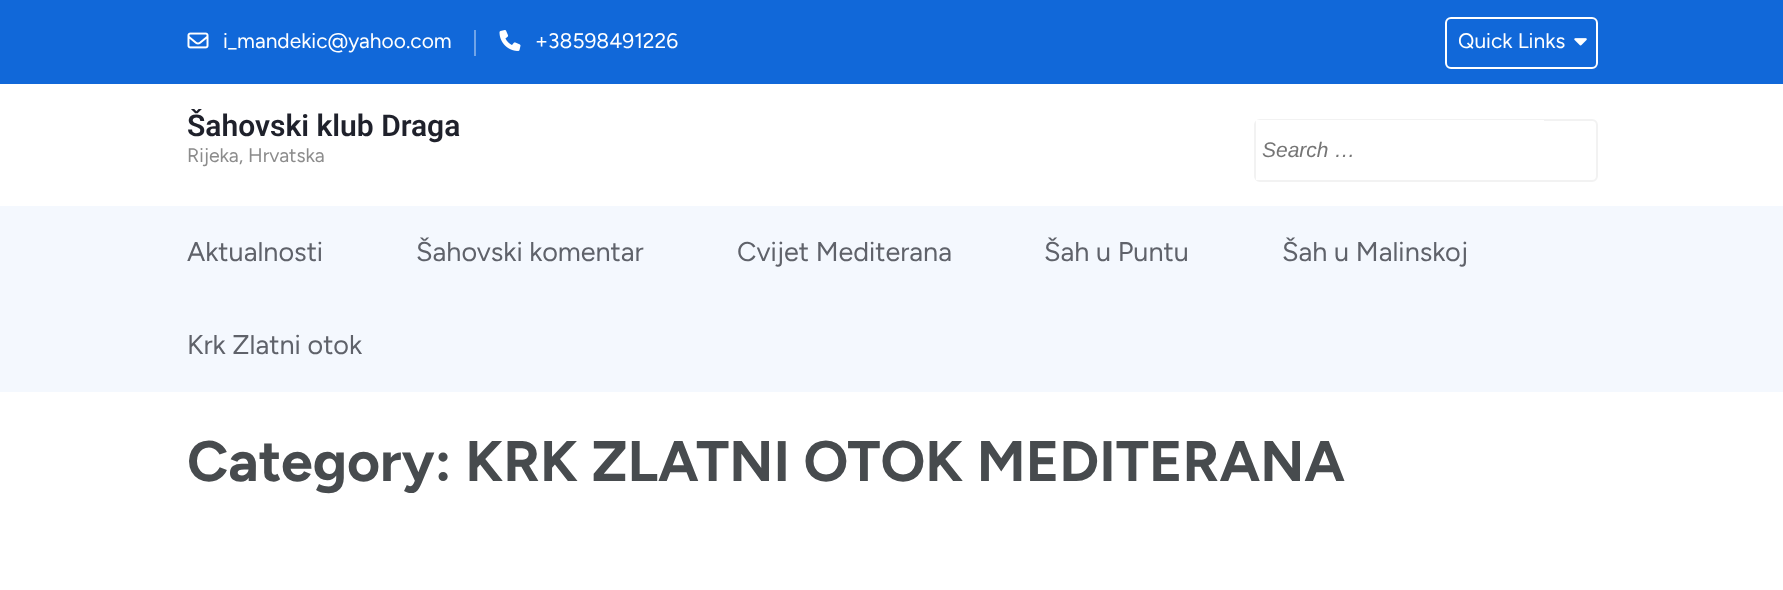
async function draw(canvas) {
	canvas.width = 1783;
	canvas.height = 590;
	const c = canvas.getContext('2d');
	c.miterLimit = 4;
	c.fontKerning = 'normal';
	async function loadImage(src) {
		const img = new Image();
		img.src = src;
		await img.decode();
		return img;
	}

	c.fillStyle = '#fff';
	c.fillRect(0, 0, 1783, 590);
	c.fillStyle = '#1168d9';
	c.fillRect(0, 0, 1783, 84);
	c.drawImage(await loadImage('img1.png'), 187, 32, 22, 17);
	c.font = '21px Figtree';
	c.fillStyle = '#fff';
	c.fillText('i_mandekic@yahoo.com', 223, 48);
	c.fillStyle = '#70a4e8';
	c.fillRect(474, 30, 2, 26);
	c.drawImage(await loadImage('img2.png'), 499, 30, 22, 21);
	c.fillStyle = '#fff';
	c.fillText('+38598491226', 535, 48);
	c.beginPath();
	c.roundRect(1446, 18, 151, 50, 5);
	c.strokeStyle = '#fff';
	c.lineWidth = 2;
	c.stroke();
	c.fillText('Quick Links', 1458, 48);
	c.drawImage(await loadImage('img3.png'), 1574, 38, 13, 8);
	c.font = '600 30px Roboto';
	c.fillStyle = '#1f212b';
	c.fillText('Šahovski klub Draga', 187, 136);
	c.font = '19.5px Figtree';
	c.fillStyle = '#8c8c8c';
	c.fillText('Rijeka, Hrvatska', 187, 162);
	c.beginPath();
	c.roundRect(1255, 120, 342, 61, 5);
	c.strokeStyle = '#f2f2f2';
	c.stroke();
	c.fillStyle = '#fff';
	c.fillRect(1256, 120, 288, 60);
	c.font = 'italic 21px Liberation Sans';
	c.fillStyle = '#757575';
	c.fillText('Search …', 1262, 157);
	c.fillStyle = '#f4f8fe';
	c.fillRect(0, 206, 1783, 186);
	c.font = '27px Figtree';
	c.fillStyle = '#5f626a';
	for (const [text, x, y] of [
		['Aktualnosti', 187, 261],
		['Šahovski komentar', 416, 261],
		['Cvijet Mediterana', 737, 261],
		['Šah u Puntu', 1044, 261],
		['Šah u Malinskoj', 1282, 261],
		['Krk Zlatni otok', 187, 354],
	]) {
		c.fillText(text, x, y);
	}
	c.font = 'bold 57px Figtree';
	c.fillStyle = '#474b4e';
	c.fillText('Category: KRK ZLATNI OTOK MEDITERANA', 187, 481);
}

draw(document.querySelector('canvas'));
